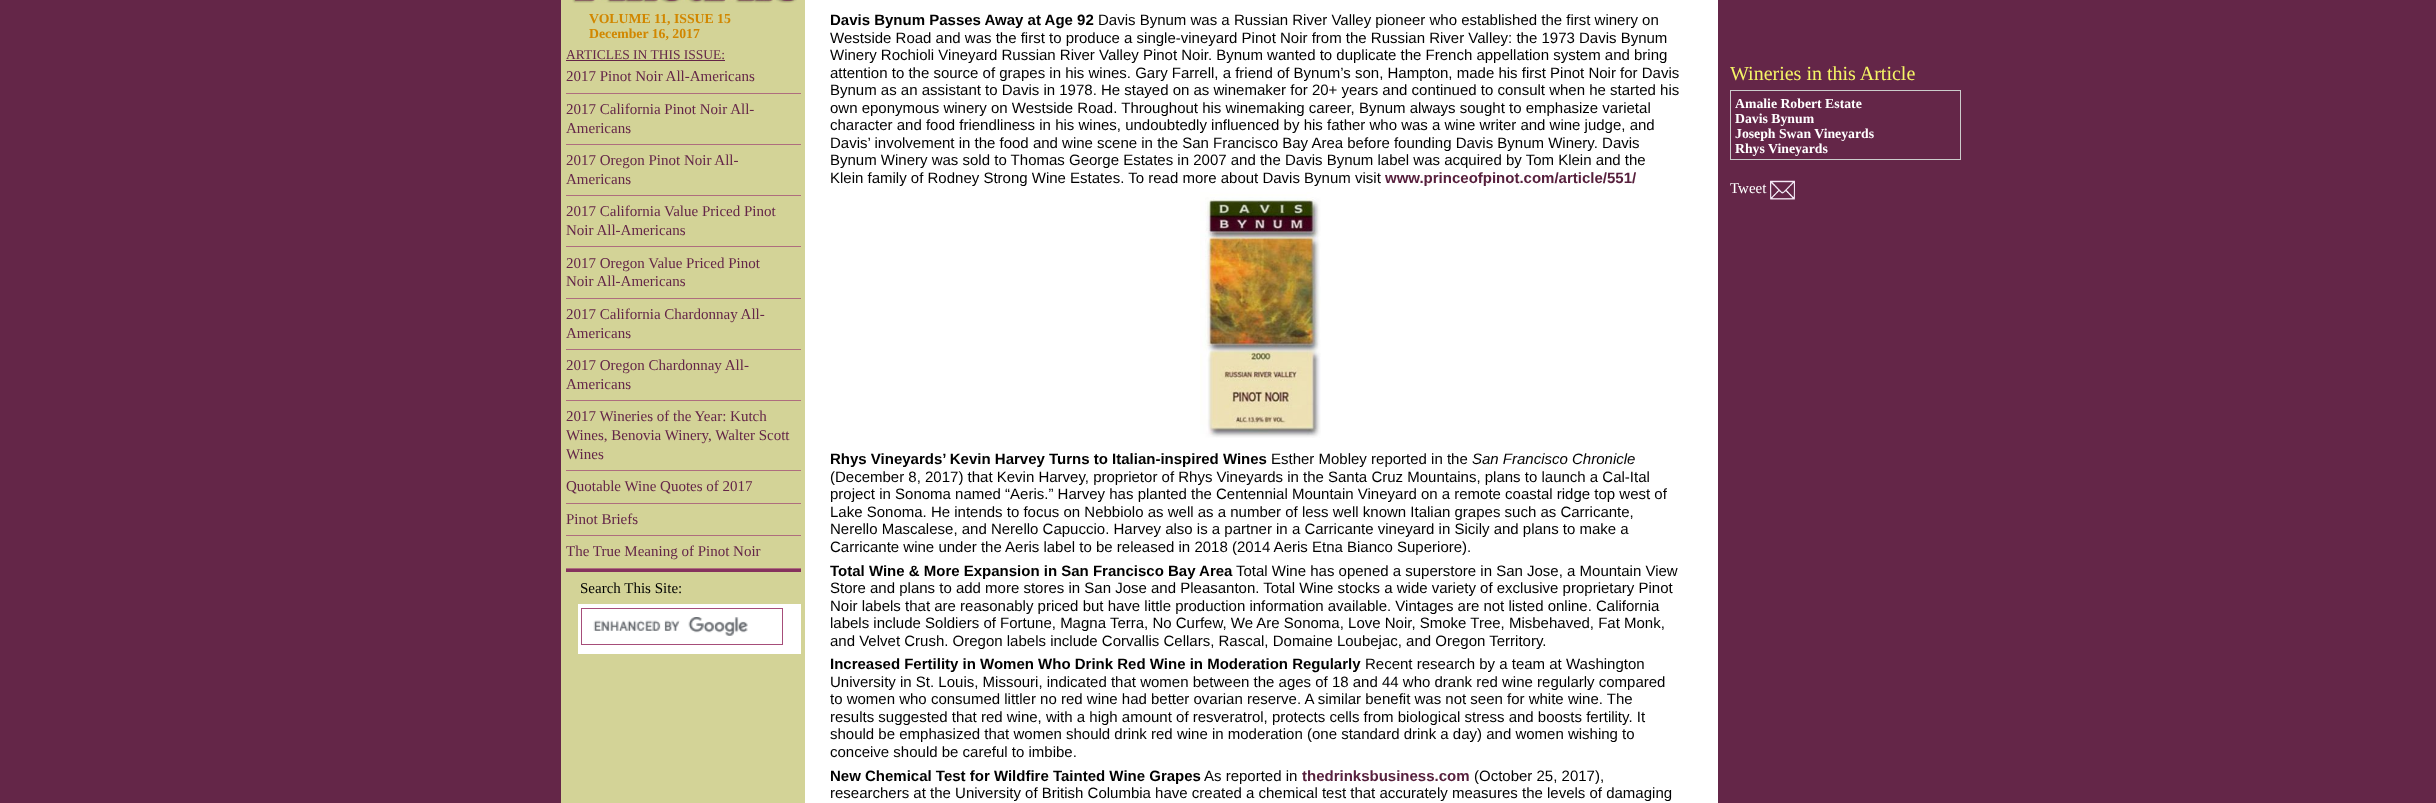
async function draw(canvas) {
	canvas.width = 2436;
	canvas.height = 803;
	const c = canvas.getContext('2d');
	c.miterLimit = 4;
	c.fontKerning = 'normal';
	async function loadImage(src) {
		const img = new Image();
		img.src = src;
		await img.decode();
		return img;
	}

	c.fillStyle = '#642648';
	c.fillRect(0, 0, 2436, 803);
	c.fillStyle = '#d3d397';
	c.fillRect(561, 0, 244, 803);
	c.drawImage(await loadImage('img1.png'), 572, 0, 225, 3);
	c.font = 'bold 13.75px Liberation Serif';
	c.fillStyle = '#d18700';
	c.fillText('VOLUME 11, ISSUE 15', 589, 23);
	c.fillText('December 16, 2017', 589, 38);
	c.fillStyle = '#85325d';
	c.fillRect(566, 569, 235, 3);
	c.font = '13.5px Liberation Serif';
	c.fillStyle = '#642648';
	c.fillText('ARTICLES IN THIS ISSUE:', 566, 59);
	c.fillRect(566, 60, 159, 1);
	c.fillStyle = '#ae6e7e';
	c.fillRect(566, 93, 235, 1);
	c.font = '15px Liberation Serif';
	c.fillStyle = '#642648';
	c.fillText('2017 Pinot Noir All-Americans', 566, 81);
	c.fillStyle = '#ae6e7e';
	c.fillRect(566, 144, 235, 1);
	c.fillStyle = '#642648';
	c.fillText('2017 California Pinot Noir All-', 566, 114);
	c.fillText('Americans', 566, 133);
	c.fillStyle = '#ae6e7e';
	c.fillRect(566, 195, 235, 1);
	c.fillStyle = '#642648';
	c.fillText('2017 Oregon Pinot Noir All-', 566, 165);
	c.fillText('Americans', 566, 184);
	c.fillStyle = '#ae6e7e';
	c.fillRect(566, 246, 235, 1);
	c.fillStyle = '#642648';
	c.fillText('2017 California Value Priced Pinot', 566, 216);
	c.fillText('Noir All-Americans', 566, 235);
	c.fillStyle = '#ae6e7e';
	c.fillRect(566, 298, 235, 1);
	c.fillStyle = '#642648';
	c.fillText('2017 Oregon Value Priced Pinot', 566, 268);
	c.fillText('Noir All-Americans', 566, 286);
	c.fillStyle = '#ae6e7e';
	c.fillRect(566, 349, 235, 1);
	c.fillStyle = '#642648';
	c.fillText('2017 California Chardonnay All-', 566, 319);
	c.fillText('Americans', 566, 338);
	c.fillStyle = '#ae6e7e';
	c.fillRect(566, 400, 235, 1);
	c.fillStyle = '#642648';
	c.fillText('2017 Oregon Chardonnay All-', 566, 370);
	c.fillText('Americans', 566, 389);
	c.fillStyle = '#ae6e7e';
	c.fillRect(566, 470, 235, 1);
	c.fillStyle = '#642648';
	for (const [text, x, y] of [
		['2017 Wineries of the Year: Kutch', 566, 421],
		['Wines, Benovia Winery, Walter Scott', 566, 440],
		['Wines', 566, 459],
	]) {
		c.fillText(text, x, y);
	}
	c.fillStyle = '#ae6e7e';
	c.fillRect(566, 503, 235, 1);
	c.fillStyle = '#642648';
	c.fillText('Quotable Wine Quotes of 2017', 566, 491);
	c.fillStyle = '#ae6e7e';
	c.fillRect(566, 535, 235, 1);
	c.fillStyle = '#642648';
	c.fillText('Pinot Briefs', 566, 524);
	c.fillStyle = '#ae6e7e';
	c.fillRect(566, 568, 235, 1);
	c.fillStyle = '#642648';
	c.fillText('The True Meaning of Pinot Noir', 566, 556);
	c.fillStyle = '#000';
	c.fillText('Search This Site:', 580, 593);
	c.fillStyle = '#fff';
	c.fillRect(578, 604, 223, 50);
	c.strokeStyle = '#a64d79';
	c.strokeRect(581.5, 608.5, 201, 36);
	c.drawImage(await loadImage('img2.png'), 593, 617, 155, 19);
	c.fillRect(805, 0, 913, 803);
	c.font = 'bold 15px Liberation Sans';
	c.fillStyle = '#000';
	c.fillText('Davis Bynum Passes Away at Age 92', 830, 25);
	c.font = '15px Liberation Sans';
	for (const [text, x, y] of [
		['Davis Bynum was a Russian River Valley pioneer who established the first winery on', 1098, 25],
		['Westside Road and was the first to produce a single-vineyard Pinot Noir from the Russian River Valley: the 1973 Davis Bynum', 830, 43],
		['Winery Rochioli Vineyard Russian River Valley Pinot Noir. Bynum wanted to duplicate the French appellation system and bring', 830, 60],
		['attention to the source of grapes in his wines. Gary Farrell, a friend of Bynum’s son, Hampton, made his first Pinot Noir for Davis', 830, 78],
		['Bynum as an assistant to Davis in 1978. He stayed on as winemaker for 20+ years and continued to consult when he started his', 830, 95],
		['own eponymous winery on Westside Road. Throughout his winemaking career, Bynum always sought to emphasize varietal', 830, 113],
		['character and food friendliness in his wines, undoubtedly influenced by his father who was a wine writer and wine judge, and', 830, 130],
		['Davis’ involvement in the food and wine scene in the San Francisco Bay Area before founding Davis Bynum Winery. Davis', 830, 148],
		['Bynum Winery was sold to Thomas George Estates in 2007 and the Davis Bynum label was acquired by Tom Klein and the', 830, 165],
		['Klein family of Rodney Strong Wine Estates. To read more about Davis Bynum visit', 830, 183],
	]) {
		c.fillText(text, x, y);
	}
	c.font = 'bold 15px Liberation Sans';
	c.fillStyle = '#57203d';
	c.fillText('www.princeofpinot.com/article/551/', 1385, 183);
	c.drawImage(await loadImage('img3.png'), 1200, 192, 121, 246);
	c.fillStyle = '#000';
	c.fillText('Rhys Vineyards’ Kevin Harvey Turns to Italian-inspired Wines', 830, 464);
	c.font = '15px Liberation Sans';
	c.fillText('Esther Mobley reported in the', 1271, 464);
	c.font = 'italic 15px Liberation Sans';
	c.fillText('San Francisco Chronicle', 1472, 464);
	c.font = '15px Liberation Sans';
	for (const [text, x, y] of [
		['(December 8, 2017) that Kevin Harvey, proprietor of Rhys Vineyards in the Santa Cruz Mountains, plans to launch a Cal-Ital', 830, 482],
		['project in Sonoma named “Aeris.” Harvey has planted the Centennial Mountain Vineyard on a remote coastal ridge top west of', 830, 499],
		['Lake Sonoma. He intends to focus on Nebbiolo as well as a number of less well known Italian grapes such as Carricante,', 830, 517],
		['Nerello Mascalese, and Nerello Capuccio. Harvey also is a partner in a Carricante vineyard in Sicily and plans to make a', 830, 534],
		['Carricante wine under the Aeris label to be released in 2018 (2014 Aeris Etna Bianco Superiore).', 830, 552],
	]) {
		c.fillText(text, x, y);
	}
	c.font = 'bold 15px Liberation Sans';
	c.fillText('Total Wine & More Expansion in San Francisco Bay Area', 830, 576);
	c.font = '15px Liberation Sans';
	for (const [text, x, y] of [
		['Total Wine has opened a superstore in San Jose, a Mountain View', 1236, 576],
		['Store and plans to add more stores in San Jose and Pleasanton. Total Wine stocks a wide variety of exclusive proprietary Pinot', 830, 593],
		['Noir labels that are reasonably priced but have little production information available. Vintages are not listed online. California', 830, 611],
		['labels include Soldiers of Fortune, Magna Terra, No Curfew, We Are Sonoma, Love Noir, Smoke Tree, Misbehaved, Fat Monk,', 830, 628],
		['and Velvet Crush. Oregon labels include Corvallis Cellars, Rascal, Domaine Loubejac, and Oregon Territory.', 830, 646],
	]) {
		c.fillText(text, x, y);
	}
	c.font = 'bold 15px Liberation Sans';
	c.fillText('Increased Fertility in Women Who Drink Red Wine in Moderation Regularly', 830, 669);
	c.font = '15px Liberation Sans';
	for (const [text, x, y] of [
		['Recent research by a team at Washington', 1365, 669],
		['University in St. Louis, Missouri, indicated that women between the ages of 18 and 44 who drank red wine regularly compared', 830, 687],
		['to women who consumed littler no red wine had better ovarian reserve. A similar benefit was not seen for white wine. The', 830, 704],
		['results suggested that red wine, with a high amount of resveratrol, protects cells from biological stress and boosts fertility. It', 830, 722],
		['should be emphasized that women should drink red wine in moderation (one standard drink a day) and women wishing to', 830, 739],
		['conceive should be careful to imbibe.', 830, 757],
	]) {
		c.fillText(text, x, y);
	}
	c.font = 'bold 15px Liberation Sans';
	c.fillText('New Chemical Test for Wildfire Tainted Wine Grapes', 830, 781);
	c.font = '15px Liberation Sans';
	c.fillText('As reported in', 1204, 781);
	c.font = 'bold 15px Liberation Sans';
	c.fillStyle = '#57203d';
	c.fillText('thedrinksbusiness.com', 1302, 781);
	c.font = '15px Liberation Sans';
	c.fillStyle = '#000';
	c.fillText('(October 25, 2017),', 1474, 781);
	c.fillText('researchers at the University of British Columbia have created a chemical test that accurately measures the levels of damaging', 830, 798);
	c.font = '20px Liberation Serif';
	c.fillStyle = '#f5f466';
	c.fillText('Wineries in this Article', 1730, 80);
	c.strokeStyle = '#ccc';
	c.strokeRect(1730.5, 90.5, 230, 69);
	c.font = 'bold 13.75px Liberation Serif';
	c.fillStyle = '#fff';
	for (const [text, x, y] of [
		['Amalie Robert Estate', 1735, 108],
		['Davis Bynum', 1735, 123],
		['Joseph Swan Vineyards', 1735, 138],
		['Rhys Vineyards', 1735, 153],
	]) {
		c.fillText(text, x, y);
	}
	c.font = '15px Liberation Serif';
	c.fillText('Tweet', 1730, 193);
	c.drawImage(await loadImage('img4.png'), 1770, 180, 25, 20);
}

draw(document.querySelector('canvas'));
